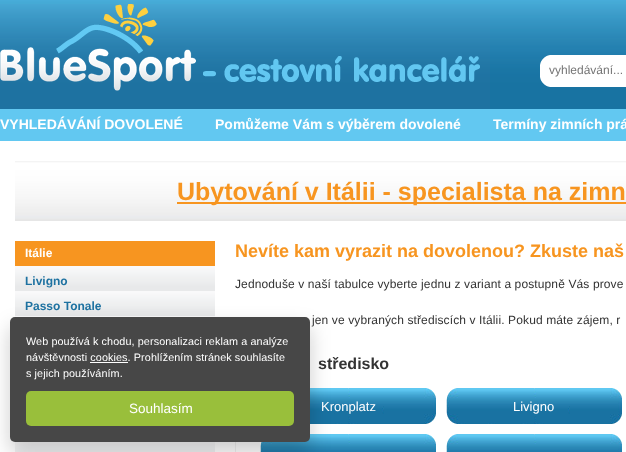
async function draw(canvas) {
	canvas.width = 626;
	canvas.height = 452;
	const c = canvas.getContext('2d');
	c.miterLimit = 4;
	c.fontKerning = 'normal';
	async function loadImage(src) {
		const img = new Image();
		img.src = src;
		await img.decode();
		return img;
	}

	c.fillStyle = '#fff';
	c.fillRect(0, 0, 626, 452);
	c.drawImage(await loadImage('img1.png'), 0, 0, 626, 141);
	c.drawImage(await loadImage('img2.png'), 0, 4, 490, 105);
	c.drawImage(await loadImage('img3.png'), 540, 55, 86, 32);
	c.font = '12px Liberation Sans';
	c.fillStyle = '#757575';
	c.fillText('vyhledávání...', 549, 74);
	c.font = 'bold 14px Liberation Sans';
	c.fillStyle = '#fff';
	for (const [text, x, y] of [
		['VYHLEDÁVÁNÍ DOVOLENÉ', 0, 129],
		['Pomůžeme Vám s výběrem dovolené', 215, 129],
		['Termíny zimních prá', 493, 129],
	]) {
		c.fillText(text, x, y);
	}
	c.drawImage(await loadImage('img4.png'), 15, 161, 611, 60);
	c.fillStyle = '#f79520';
	c.fillRect(177, 202, 449, 2);
	c.font = 'bold 25px Liberation Sans';
	c.fillText('Ubytování v Itálii - specialista na zimn', 177, 200);
	c.fillRect(15, 241, 200, 25);
	c.font = 'bold 12px Liberation Sans';
	c.fillStyle = '#fff';
	c.fillText('Itálie', 25, 257);
	c.drawImage(await loadImage('img5.png'), 15, 266, 200, 25);
	c.fillStyle = '#1e72a1';
	c.fillText('Livigno', 25, 285);
	c.drawImage(await loadImage('img5.png'), 15, 291, 200, 25);
	c.fillText('Passo Tonale', 25, 310);
	c.drawImage(await loadImage('img6.png'), 15, 316, 200, 1);
	c.drawImage(await loadImage('img7.png'), 15, 442, 200, 10);
	c.font = 'bold 18px Liberation Sans';
	c.fillStyle = '#f79520';
	c.fillText('Nevíte kam vyrazit na dovolenou? Zkuste naš', 235, 257);
	c.letterSpacing = '0.12px';
	c.font = '12px Liberation Sans';
	c.fillStyle = '#333';
	c.fillText('Jednoduše v naší tabulce vyberte jednu z variant a postupně Vás prove', 235, 288);
	c.fillText('jen ve vybraných střediscích v Itálii. Pokud máte zájem, r', 312, 324);
	c.fillStyle = '#f0f0f0';
	c.fillRect(235, 442, 1, 10);
	c.letterSpacing = '0px';
	c.font = 'bold 16px Liberation Sans';
	c.fillStyle = '#333';
	c.fillText('středisko', 318, 369);
	c.drawImage(await loadImage('img8.png'), 310, 388, 126, 36);
	c.font = '13px Liberation Sans';
	c.fillStyle = '#fff';
	c.fillText('Kronplatz', 321, 411);
	c.drawImage(await loadImage('img9.png'), 446, 388, 176, 36);
	c.fillText('Livigno', 513, 411);
	c.drawImage(await loadImage('img10.png'), 260, 434, 176, 18);
	c.drawImage(await loadImage('img10.png'), 446, 434, 176, 18);
	c.fillStyle = '#00000033';
	c.filter = 'blur(10px)';
	c.beginPath();
	c.roundRect(10, 327, 300, 125, 5);
	c.fill();
	c.filter = 'none';
	c.fillStyle = '#474747';
	c.beginPath();
	c.roundRect(10, 317, 300, 125, 5);
	c.fill();
	c.letterSpacing = '0.1px';
	c.font = '10.8px Liberation Sans';
	c.fillStyle = '#fff';
	c.fillText('Web používá k chodu, personalizaci reklam a analýze', 26, 345);
	c.fillText('návštěvnosti cookies. Prohlížením stránek souhlasíte', 26, 361);
	c.fillRect(90, 362, 38, 1);
	c.fillText('s jejich používáním.', 26, 377);
	c.fillStyle = '#99bf3b';
	c.beginPath();
	c.roundRect(26, 391, 268, 35, 5);
	c.fill();
	c.letterSpacing = '0px';
	c.font = '13.5px Liberation Sans';
	c.fillStyle = '#fff';
	c.fillText('Souhlasím', 129, 413);
}

draw(document.querySelector('canvas'));
